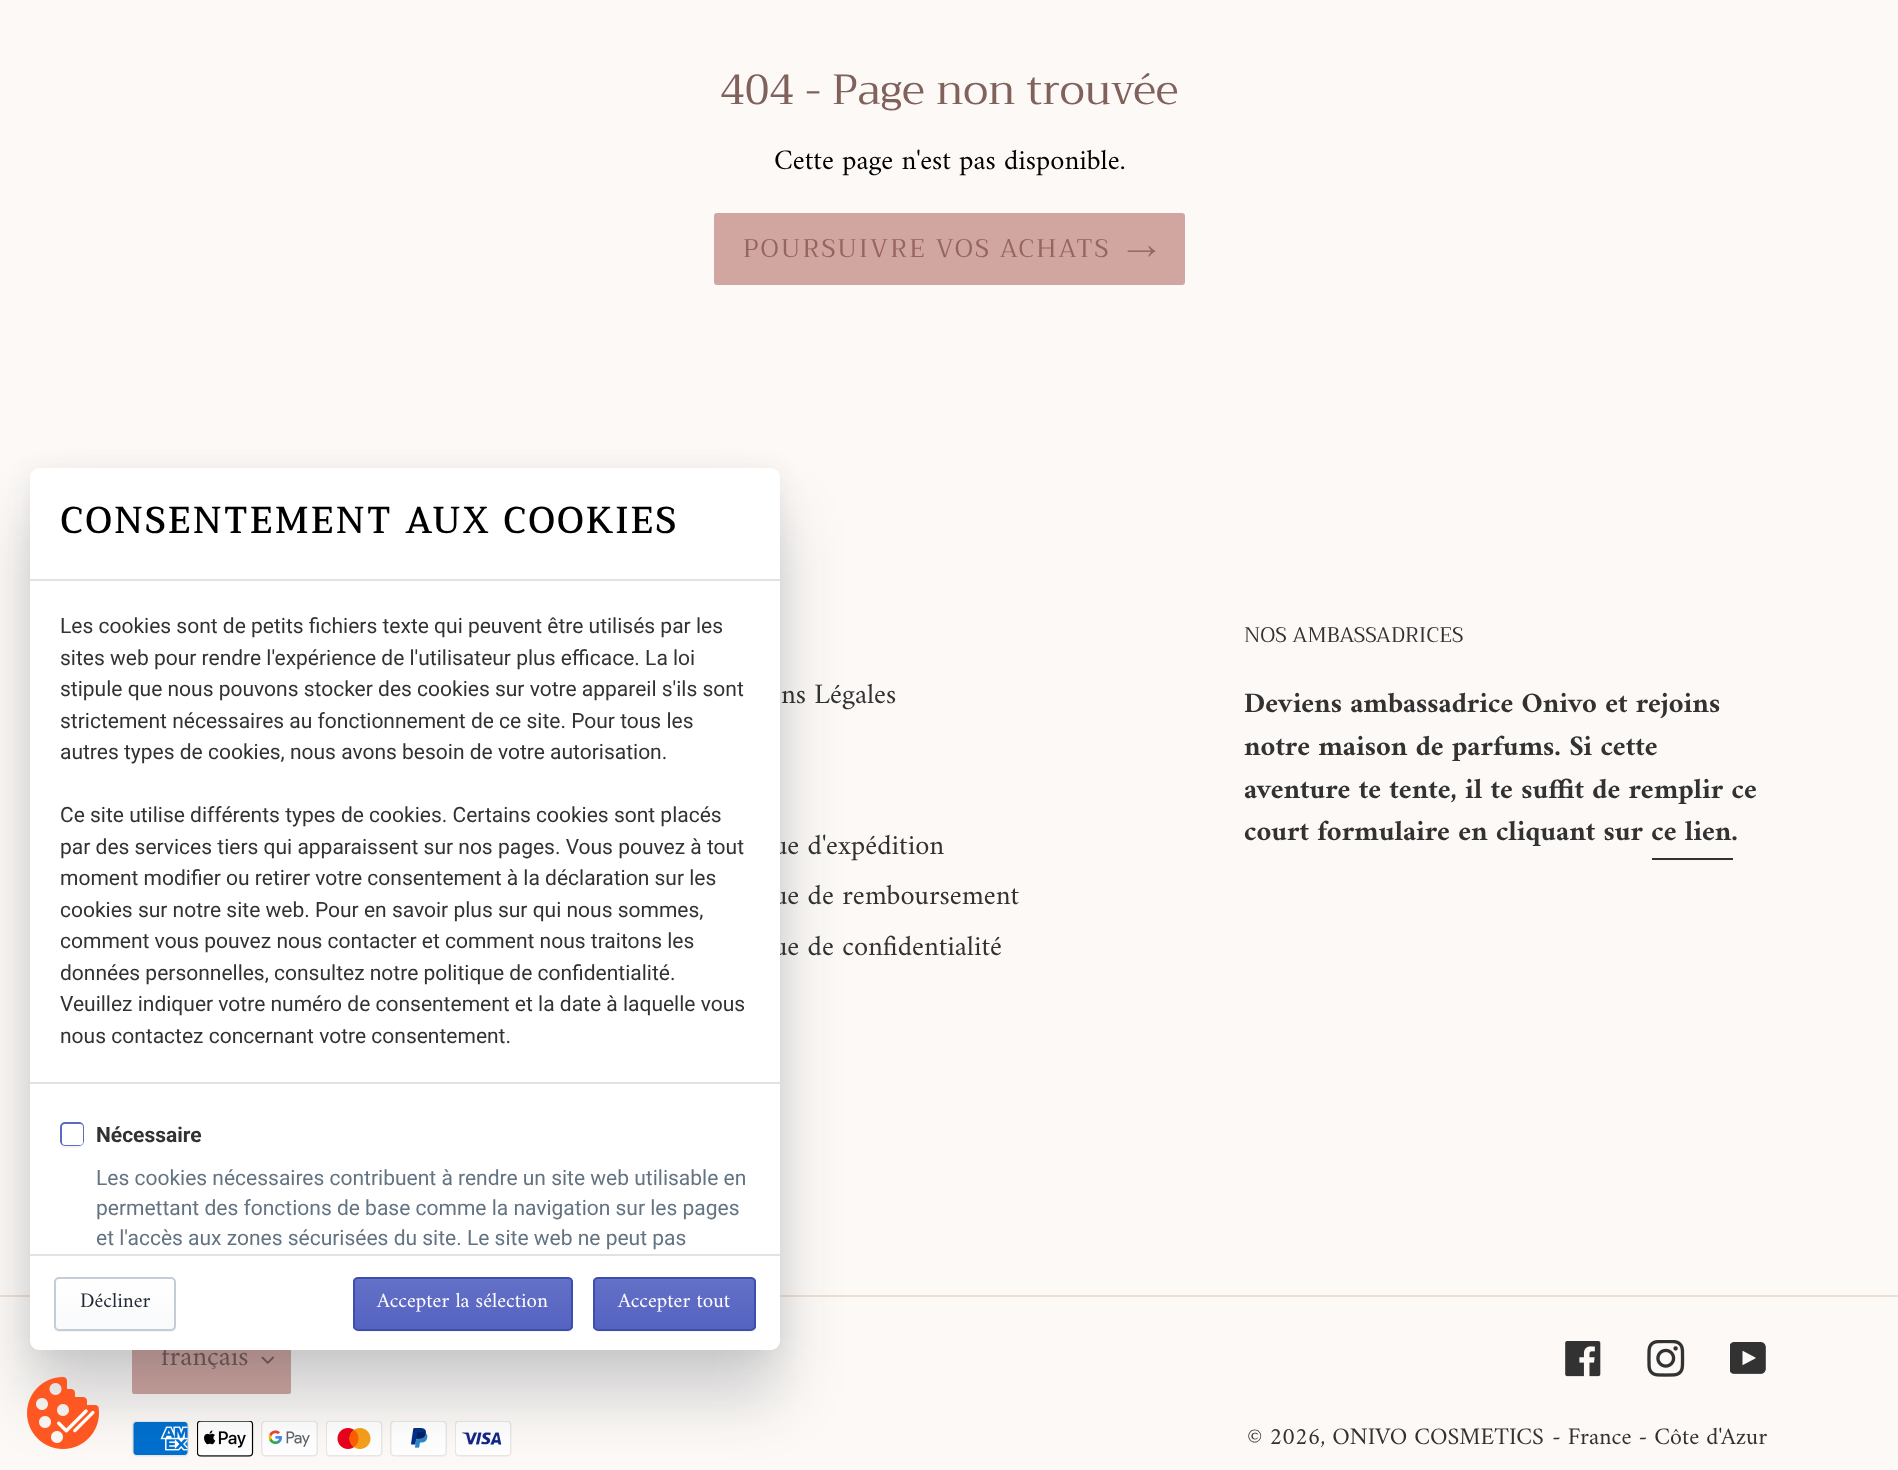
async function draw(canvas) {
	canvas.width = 1898;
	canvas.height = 1470;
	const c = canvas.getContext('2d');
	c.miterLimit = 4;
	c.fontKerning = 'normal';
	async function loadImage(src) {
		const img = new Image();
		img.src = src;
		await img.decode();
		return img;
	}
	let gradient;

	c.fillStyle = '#fcf9f6';
	c.fillRect(0, 0, 1898, 1470);
	c.font = '42px Trirong';
	c.fillStyle = '#81615c';
	c.fillText('404 - Page non trouvée', 720, 104);
	c.font = '28.5px Amiri';
	c.fillStyle = '#000';
	c.fillText('Cette page n\'est pas disponible.', 774, 169);
	c.fillStyle = '#d1a6a0';
	c.beginPath();
	c.roundRect(714, 213, 471, 72, 3);
	c.fill();
	c.letterSpacing = '2px';
	c.font = '25.5px Trirong';
	c.fillStyle = '#95655e';
	c.fillText('POURSUIVRE VOS ACHATS', 743, 257);
	c.drawImage(await loadImage('img1.png'), 1127, 246, 29, 11);
	c.letterSpacing = '0px';
	c.font = '28.5px Amiri';
	c.fillStyle = '#333232';
	for (const [text, x, y] of [
		['ns Légales', 781, 703],
		['ue d\'expédition', 773, 854],
		['ue de remboursement', 773, 904],
		['ue de confidentialité', 773, 955],
	]) {
		c.fillText(text, x, y);
	}
	c.font = '21px Trirong';
	c.fillText('NOS AMBASSADRICES', 1244, 642);
	c.font = 'bold 28.5px Amiri';
	for (const [text, x, y] of [
		['Deviens ambassadrice Onivo et rejoins', 1244, 712],
		['notre maison de parfums. Si cette', 1244, 755],
		['aventure te tente, il te suffit de remplir ce', 1244, 798],
		['court formulaire en cliquant sur ce lien.', 1244, 840],
	]) {
		c.fillText(text, x, y);
	}
	c.fillRect(1652, 858, 81, 2);
	c.fillStyle = '#efdfd0';
	c.fillRect(0, 1295, 1898, 2);
	c.fillStyle = '#d1a6a0';
	c.beginPath();
	c.roundRect(132, 1326, 159, 68, 3);
	c.fill();
	c.drawImage(await loadImage('img2.png'), 261, 1356, 13, 8);
	c.beginPath();
	c.roundRect(133, 1327, 157, 66, 2);
	c.strokeStyle = '#d1a6a0';
	c.lineWidth = 2;
	c.stroke();
	c.font = '28.5px Amiri';
	c.fillStyle = '#735b57';
	c.fillText('français', 161, 1365);
	c.drawImage(await loadImage('img3.png'), 1565, 1341, 36, 36);
	c.drawImage(await loadImage('img4.png'), 1647, 1340, 38, 37);
	c.drawImage(await loadImage('img5.png'), 1730, 1342, 36, 32);
	c.drawImage(await loadImage('img6.png'), 132, 1421, 57, 36);
	c.drawImage(await loadImage('img7.png'), 197, 1421, 57, 36);
	c.drawImage(await loadImage('img8.png'), 261, 1421, 57, 36);
	c.drawImage(await loadImage('img9.png'), 326, 1421, 57, 36);
	c.drawImage(await loadImage('img10.png'), 390, 1421, 57, 36);
	c.drawImage(await loadImage('img11.png'), 455, 1421, 57, 36);
	c.font = '24px Amiri';
	c.fillStyle = '#333232';
	c.fillText('© 2026, ONIVO COSMETICS', 1247, 1444);
	c.fillText('- France - Côte d\'Azur', 1552, 1444);
	c.fillStyle = '#202a3614';
	c.filter = 'blur(12px)';
	c.beginPath();
	c.roundRect(30, 471, 750, 882, 9);
	c.fill();
	c.filter = 'none';
	c.fillStyle = '#202a3533';
	c.filter = 'blur(31px)';
	c.beginPath();
	c.roundRect(30, 515, 750, 882, 9);
	c.fill();
	c.filter = 'none';
	c.fillStyle = '#fff';
	c.beginPath();
	c.roundRect(30, 468, 750, 882, 9);
	c.fill();
	c.fillStyle = '#dfe3e8';
	c.fillRect(30, 579, 750, 2);
	c.letterSpacing = '3px';
	c.font = 'bold 36px Trirong';
	c.fillStyle = '#000';
	c.fillText('CONSENTEMENT AUX COOKIES', 60, 533);
	c.fillStyle = '#dfe3e8';
	c.fillRect(30, 1082, 750, 2);
	c.letterSpacing = '0px';
	c.font = '21px Roboto';
	c.fillStyle = '#333232';
	for (const [text, x, y] of [
		['Les cookies sont de petits fichiers texte qui peuvent être utilisés par les', 60, 633],
		['sites web pour rendre l\'expérience de l\'utilisateur plus efficace. La loi', 60, 665],
		['stipule que nous pouvons stocker des cookies sur votre appareil s\'ils sont', 60, 696],
		['strictement nécessaires au fonctionnement de ce site. Pour tous les', 60, 728],
		['autres types de cookies, nous avons besoin de votre autorisation.', 60, 759],
		['Ce site utilise différents types de cookies. Certains cookies sont placés', 60, 822],
		['par des services tiers qui apparaissent sur nos pages. Vous pouvez à tout', 60, 854],
		['moment modifier ou retirer votre consentement à la déclaration sur les', 60, 885],
		['cookies sur notre site web. Pour en savoir plus sur qui nous sommes,', 60, 917],
		['comment vous pouvez nous contacter et comment nous traitons les', 60, 948],
		['données personnelles, consultez notre politique de confidentialité.', 60, 980],
		['Veuillez indiquer votre numéro de consentement et la date à laquelle vous', 60, 1011],
		['nous contactez concernant votre consentement.', 60, 1043],
	]) {
		c.fillText(text, x, y);
	}
	c.fillStyle = '#f3f4f4';
	c.beginPath();
	c.moveTo(60, 1141.5);
	c.bezierCurveTo(60, 1149.5, 66, 1148, 72, 1148);
	c.bezierCurveTo(78, 1148, 84, 1149.5, 84, 1141.5);
	c.bezierCurveTo(84, 1147.5, 75.5, 1146, 72, 1146);
	c.bezierCurveTo(68.5, 1146, 60, 1147.5, 60, 1141.5);
	c.closePath();
	c.fill();
	c.fillStyle = '#5c6ac4';
	c.beginPath();
	c.roundRect(60, 1122, 24, 24, 5);
	c.fill();
	c.fillStyle = '#fff';
	c.beginPath();
	c.roundRect(62, 1124, 21, 21, 3);
	c.fill();
	c.font = 'bold 21px Roboto';
	c.fillStyle = '#333232';
	c.fillText('Nécessaire', 96, 1142);
	c.font = '21px Roboto';
	c.fillStyle = '#637381';
	for (const [text, x, y] of [
		['Les cookies nécessaires contribuent à rendre un site web utilisable en', 96, 1185],
		['permettant des fonctions de base comme la navigation sur les pages', 96, 1215],
		['et l\'accès aux zones sécurisées du site. Le site web ne peut pas', 96, 1245],
	]) {
		c.fillText(text, x, y);
	}
	c.fillStyle = '#dfe3e8';
	c.fillRect(30, 1254, 750, 2);
	c.fillStyle = '#f3f4f4';
	c.beginPath();
	c.moveTo(54, 1326);
	c.lineTo(54, 1327);
	c.bezierCurveTo(54, 1330, 56, 1332, 59, 1332);
	c.lineTo(171, 1332);
	c.bezierCurveTo(174, 1332, 176, 1330, 176, 1327);
	c.lineTo(176, 1283);
	c.lineTo(175, 1281);
	c.lineTo(175, 1327);
	c.bezierCurveTo(174, 1334, 158, 1330, 152, 1330);
	c.lineTo(77, 1330);
	c.bezierCurveTo(68, 1330, 54, 1334, 54, 1326);
	c.closePath();
	c.fill();
	c.save();
	c.beginPath();
	c.roundRect(54, 1277, 122, 54, 5);
	c.clip();
	gradient = c.createLinearGradient(115, 1278, 115, 1329);
	gradient.addColorStop(0, '#fff');
	gradient.addColorStop(1, '#f9fafb');
	c.fillStyle = gradient;
	c.fillRect(54, 1278, 122, 51);
	c.restore();
	c.beginPath();
	c.roundRect(55, 1278, 120, 52, 4);
	c.strokeStyle = '#c4cdd5';
	c.stroke();
	c.font = '21px Amiri';
	c.fillStyle = '#212b36';
	c.fillText('Décliner', 80, 1307);
	c.fillStyle = '#f3f4f4';
	c.beginPath();
	c.moveTo(353, 1328);
	c.bezierCurveTo(354, 1330, 356, 1332, 358, 1332);
	c.lineTo(568, 1332);
	c.bezierCurveTo(571, 1332, 573, 1330, 573, 1327);
	c.lineTo(573, 1326);
	c.bezierCurveTo(573, 1328, 571, 1330, 568, 1330);
	c.lineTo(357, 1330);
	c.bezierCurveTo(355, 1330, 354, 1330, 353, 1328);
	c.closePath();
	c.fill();
	c.save();
	c.beginPath();
	c.roundRect(353, 1277, 220, 54, 5);
	c.clip();
	gradient = c.createLinearGradient(463, 1278, 463, 1329);
	gradient.addColorStop(0, '#6371c7');
	gradient.addColorStop(1, '#5563c1');
	c.fillStyle = gradient;
	c.fillRect(353, 1278, 220, 51);
	c.restore();
	c.fillStyle = '#6774c8';
	c.beginPath();
	c.moveTo(357, 1280);
	c.lineTo(568, 1280);
	c.bezierCurveTo(570, 1280, 572, 1281, 572, 1282);
	c.lineTo(572, 1281);
	c.bezierCurveTo(572, 1279, 571, 1278, 569, 1278);
	c.lineTo(357, 1278);
	c.bezierCurveTo(355, 1278, 354, 1279, 354, 1281);
	c.lineTo(354, 1282);
	c.bezierCurveTo(354, 1281, 355, 1280, 357, 1280);
	c.closePath();
	c.fill();
	c.beginPath();
	c.roundRect(354, 1278, 218, 52, 4);
	c.strokeStyle = '#3f4eae';
	c.stroke();
	c.fillStyle = '#fff';
	c.fillText('Accepter la sélection', 377, 1307);
	c.fillStyle = '#f3f4f4';
	c.beginPath();
	c.moveTo(593, 1328);
	c.bezierCurveTo(594, 1330, 596, 1332, 598, 1332);
	c.lineTo(751, 1332);
	c.bezierCurveTo(754, 1332, 756, 1330, 756, 1327);
	c.lineTo(756, 1326);
	c.bezierCurveTo(756, 1328, 754, 1330, 752, 1330);
	c.lineTo(597, 1330);
	c.bezierCurveTo(595, 1330, 594, 1330, 593, 1328);
	c.closePath();
	c.fill();
	c.save();
	c.beginPath();
	c.roundRect(593, 1277, 163, 54, 5);
	c.clip();
	gradient = c.createLinearGradient(674, 1278, 674, 1329);
	gradient.addColorStop(0, '#6371c7');
	gradient.addColorStop(1, '#5563c1');
	c.fillStyle = gradient;
	c.fillRect(593, 1278, 163, 51);
	c.restore();
	c.fillStyle = '#6774c8';
	c.beginPath();
	c.moveTo(597, 1280);
	c.lineTo(752, 1280);
	c.bezierCurveTo(753, 1280, 754, 1281, 754, 1282);
	c.lineTo(754, 1328);
	c.bezierCurveTo(755, 1328, 755, 1327, 755, 1326);
	c.lineTo(755, 1281);
	c.bezierCurveTo(755, 1279, 754, 1278, 752, 1278);
	c.lineTo(597, 1278);
	c.bezierCurveTo(595, 1278, 594, 1279, 594, 1281);
	c.lineTo(594, 1282);
	c.bezierCurveTo(594, 1281, 595, 1280, 597, 1280);
	c.closePath();
	c.fill();
	c.beginPath();
	c.roundRect(594, 1278, 161, 52, 4);
	c.stroke();
	c.fillStyle = '#fff';
	c.fillText('Accepter tout', 618, 1307);
	c.drawImage(await loadImage('img12.png'), 27, 1377, 72, 72);
}

draw(document.querySelector('canvas'));
